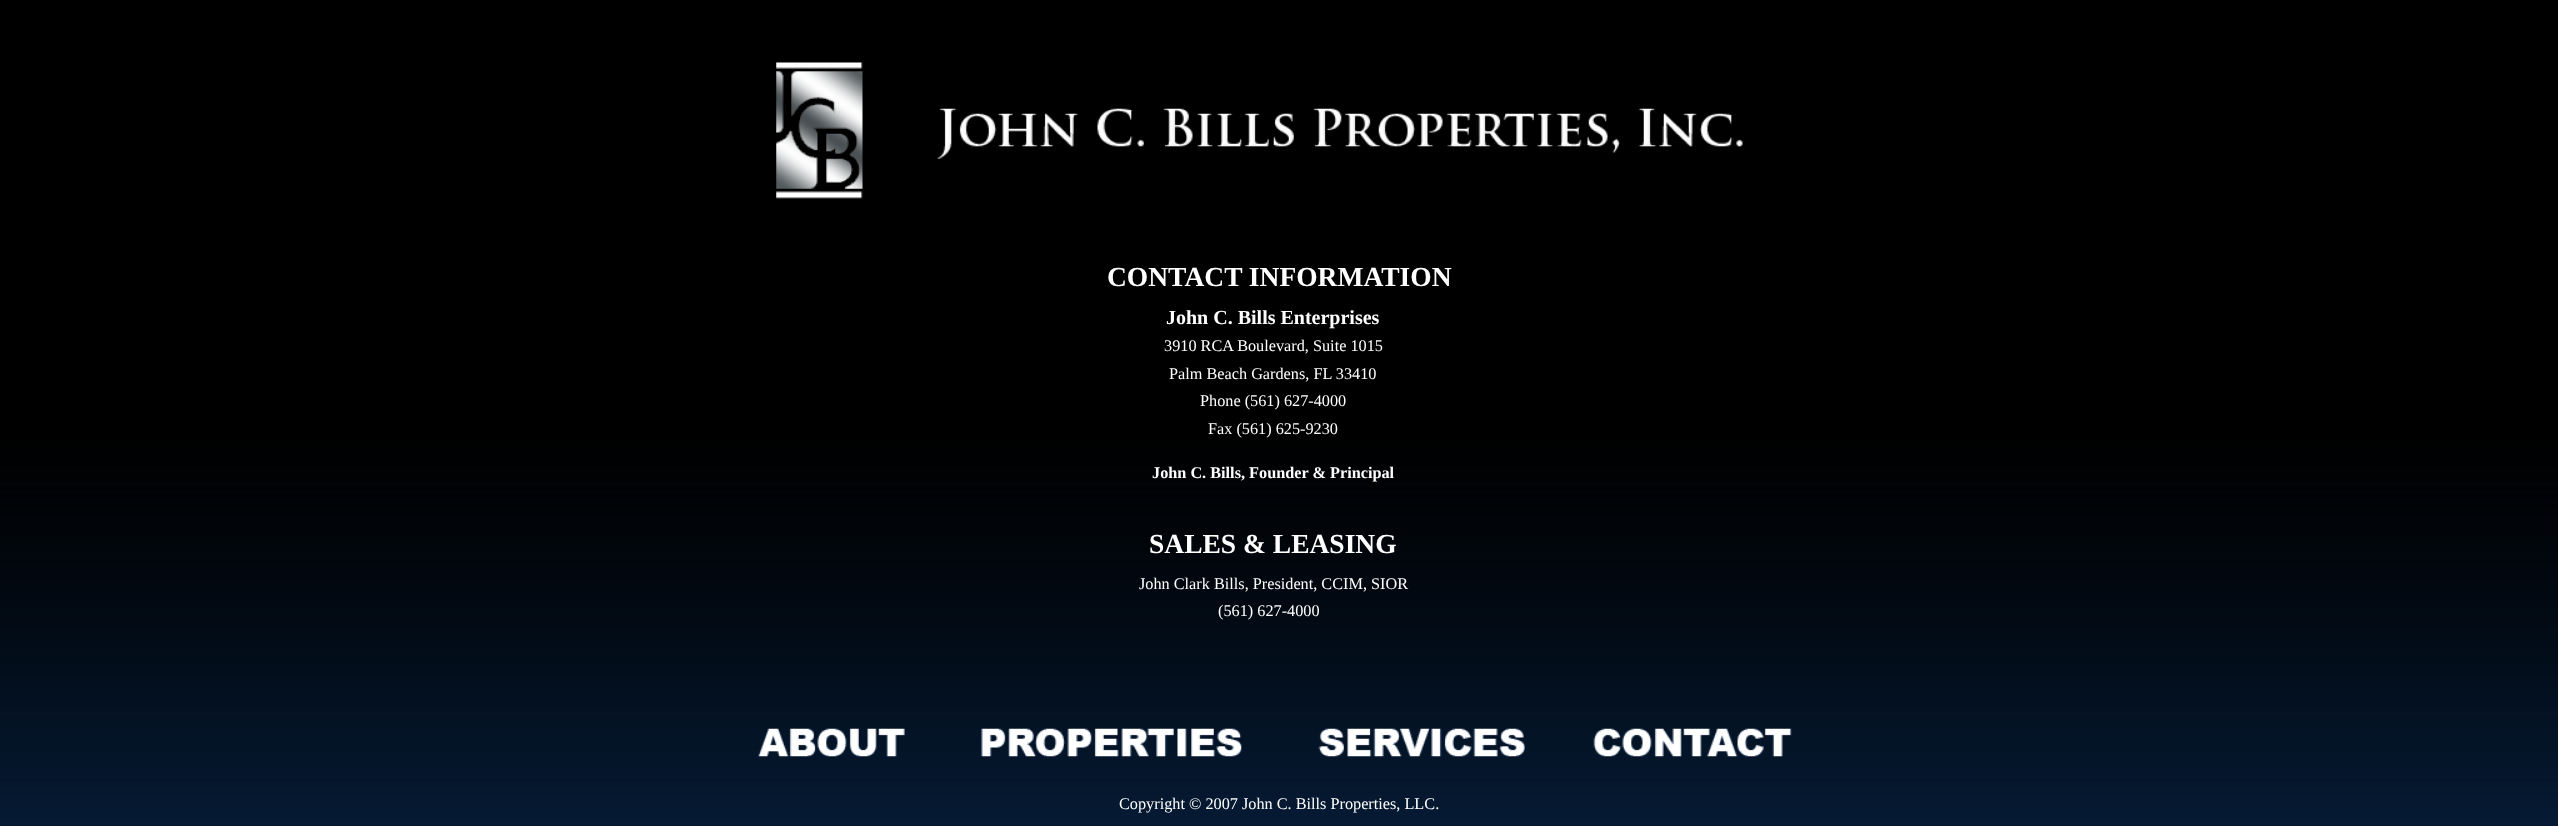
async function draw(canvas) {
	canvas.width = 2558;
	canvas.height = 826;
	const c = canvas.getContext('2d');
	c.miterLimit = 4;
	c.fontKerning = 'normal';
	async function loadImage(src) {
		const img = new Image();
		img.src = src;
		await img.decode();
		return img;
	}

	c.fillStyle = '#fff';
	c.fillRect(0, 0, 2558, 826);
	c.drawImage(await loadImage('img1.png'), 0, 0, 2558, 826);
	c.drawImage(await loadImage('img2.png'), 776, 62, 87, 137);
	c.drawImage(await loadImage('img3.png'), 937, 108, 806, 51);
	c.font = 'bold 27.5px Liberation Serif';
	c.fillText('CONTACT INFORMATION', 1107, 286);
	c.font = 'bold 20px Liberation Serif';
	c.fillText('John C. Bills Enterprises', 1166, 324);
	c.font = '16.25px Liberation Serif';
	for (const [text, x, y] of [
		['3910 RCA Boulevard, Suite 1015', 1164, 351],
		['Palm Beach Gardens, FL 33410', 1169, 379],
		['Phone (561) 627-4000', 1200, 406],
		['Fax (561) 625-9230', 1208, 434],
	]) {
		c.fillText(text, x, y);
	}
	c.font = 'bold 16.25px Liberation Serif';
	c.fillText('John C. Bills, Founder & Principal', 1152, 478);
	c.font = 'bold 27.5px Liberation Serif';
	c.fillText('SALES & LEASING', 1149, 553);
	c.font = '16.25px Liberation Serif';
	c.fillText('John Clark Bills, President, CCIM, SIOR', 1139, 589);
	c.fillText('(561) 627-4000', 1218, 616);
	c.drawImage(await loadImage('img4.png'), 758, 728, 147, 29);
	c.drawImage(await loadImage('img5.png'), 981, 728, 261, 29);
	c.drawImage(await loadImage('img6.png'), 1318, 728, 207, 29);
	c.drawImage(await loadImage('img7.png'), 1593, 728, 199, 29);
	c.fillText('Copyright © 2007 John C. Bills Properties, LLC.', 1119, 809);
}

draw(document.querySelector('canvas'));
